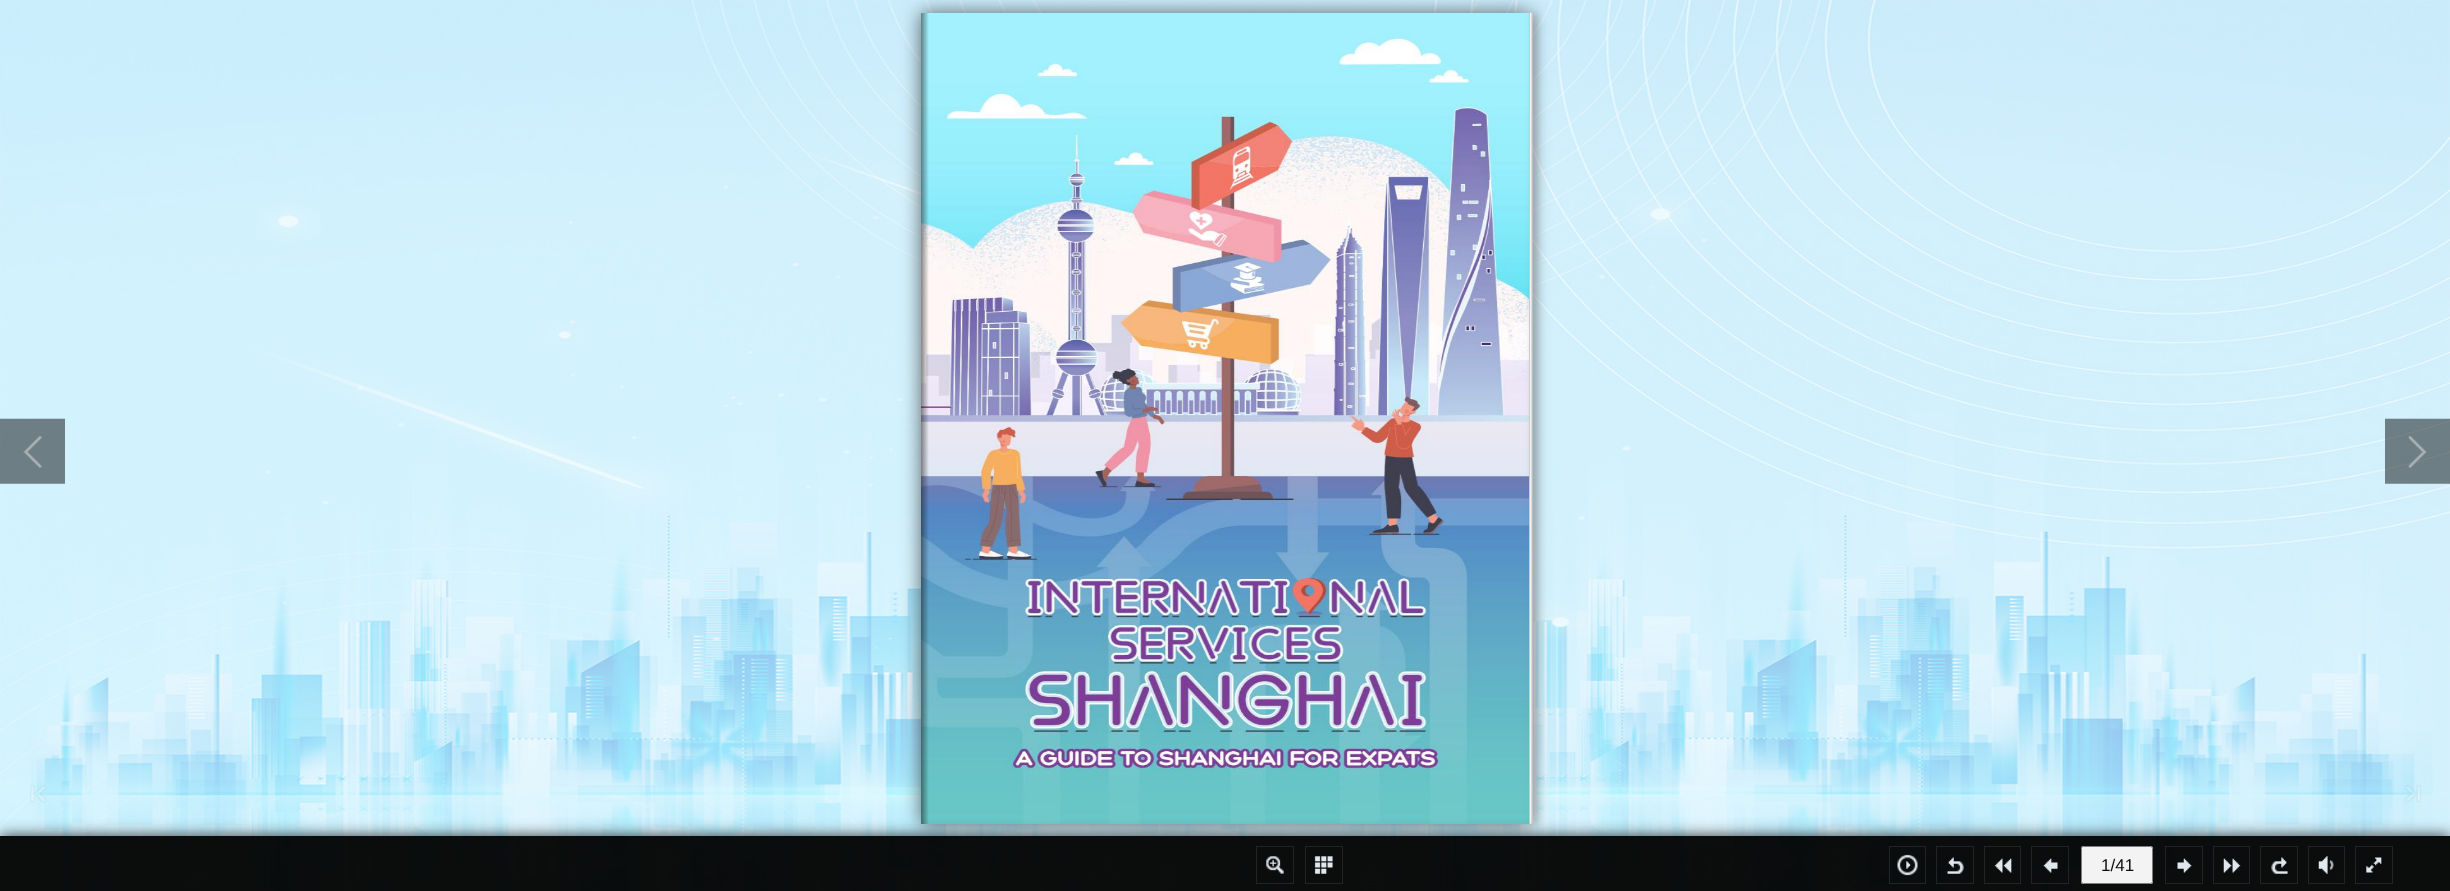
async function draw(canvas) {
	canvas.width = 2450;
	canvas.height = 891;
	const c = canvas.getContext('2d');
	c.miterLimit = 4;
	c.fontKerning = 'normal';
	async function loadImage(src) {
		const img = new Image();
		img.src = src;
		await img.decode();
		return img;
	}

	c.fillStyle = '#fff';
	c.fillRect(0, 0, 2450, 891);
	c.drawImage(await loadImage('img1.png'), 0, 0, 2450, 891);
	c.drawImage(await loadImage('img2.png'), 0, 418, 65, 66);
	c.fillStyle = '#282828b3';
	c.filter = 'blur(9.5px)';
	c.beginPath();
	c.rect(921, 13, 609, 811);
	c.fill();
	c.filter = 'none';
	c.drawImage(await loadImage('img3.png'), 921, 13, 608, 811);
	c.fillStyle = '#7d7d7db3';
	c.filter = 'blur(3.5px)';
	c.beginPath();
	c.rect(1533, 13, 3, 811);
	c.fill();
	c.filter = 'none';
	c.fillStyle = '#ccc';
	c.fillRect(1529, 13, 3, 811);
	c.drawImage(await loadImage('img4.png'), 1530, 12, 3, 812);
	c.drawImage(await loadImage('img5.png'), 2385, 418, 65, 66);
	c.drawImage(await loadImage('img6.png'), 30, 785, 16, 18);
	c.drawImage(await loadImage('img7.png'), 2405, 785, 16, 18);
	c.save();
	c.beginPath();
	c.moveTo(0, 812);
	c.lineTo(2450, 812);
	c.lineTo(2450, 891);
	c.lineTo(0, 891);
	c.closePath();
	c.moveTo(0, 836);
	c.lineTo(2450, 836);
	c.lineTo(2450, 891);
	c.lineTo(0, 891);
	c.closePath();
	c.clip('evenodd');
	c.fillStyle = '#282828f2';
	c.filter = 'blur(7.5px)';
	c.beginPath();
	c.rect(0, 836, 2450, 55);
	c.fill();
	c.filter = 'none';
	c.restore();
	c.fillStyle = '#000000f2';
	c.fillRect(0, 836, 2450, 55);
	c.strokeStyle = '#222324';
	c.strokeRect(1256.5, 846.5, 37, 37);
	c.drawImage(await loadImage('img8.png'), 1266, 856, 18, 18);
	c.strokeRect(1305.5, 846.5, 37, 37);
	c.drawImage(await loadImage('img9.png'), 1314, 856, 19, 18);
	c.strokeStyle = '#212324';
	c.strokeRect(1889.5, 846.5, 36, 37);
	c.drawImage(await loadImage('img10.png'), 1897, 854, 21, 22);
	c.strokeRect(1936.5, 846.5, 37, 37);
	c.drawImage(await loadImage('img11.png'), 1947, 857, 17, 17);
	c.strokeRect(1984.5, 846.5, 36, 37);
	c.drawImage(await loadImage('img12.png'), 1994, 858, 18, 15);
	c.strokeRect(2031.5, 846.5, 37, 37);
	c.drawImage(await loadImage('img13.png'), 2043, 858, 15, 15);
	c.fillStyle = '#f3f3f3';
	c.beginPath();
	c.roundRect(2081, 846, 72, 38, 2.5);
	c.fill();
	c.beginPath();
	c.roundRect(2081.5, 846.5, 71, 37, 2);
	c.strokeStyle = '#767676f2';
	c.stroke();
	c.font = '17px Liberation Sans';
	c.fillStyle = '#0c0c0c';
	c.fillText('1/41', 2101, 871);
	c.strokeStyle = '#212324';
	c.strokeRect(2165.5, 846.5, 37, 37);
	c.drawImage(await loadImage('img14.png'), 2177, 858, 15, 15);
	c.strokeRect(2213.5, 846.5, 36, 37);
	c.drawImage(await loadImage('img15.png'), 2223, 858, 18, 15);
	c.strokeStyle = '#222324';
	c.strokeRect(2260.5, 846.5, 37, 37);
	c.drawImage(await loadImage('img16.png'), 2271, 857, 17, 17);
	c.strokeRect(2308.5, 846.5, 36, 37);
	c.drawImage(await loadImage('img17.png'), 2318, 856, 16, 18);
	c.strokeRect(2355.5, 846.5, 37, 37);
	c.drawImage(await loadImage('img18.png'), 2366, 857, 16, 16);
}

draw(document.querySelector('canvas'));
